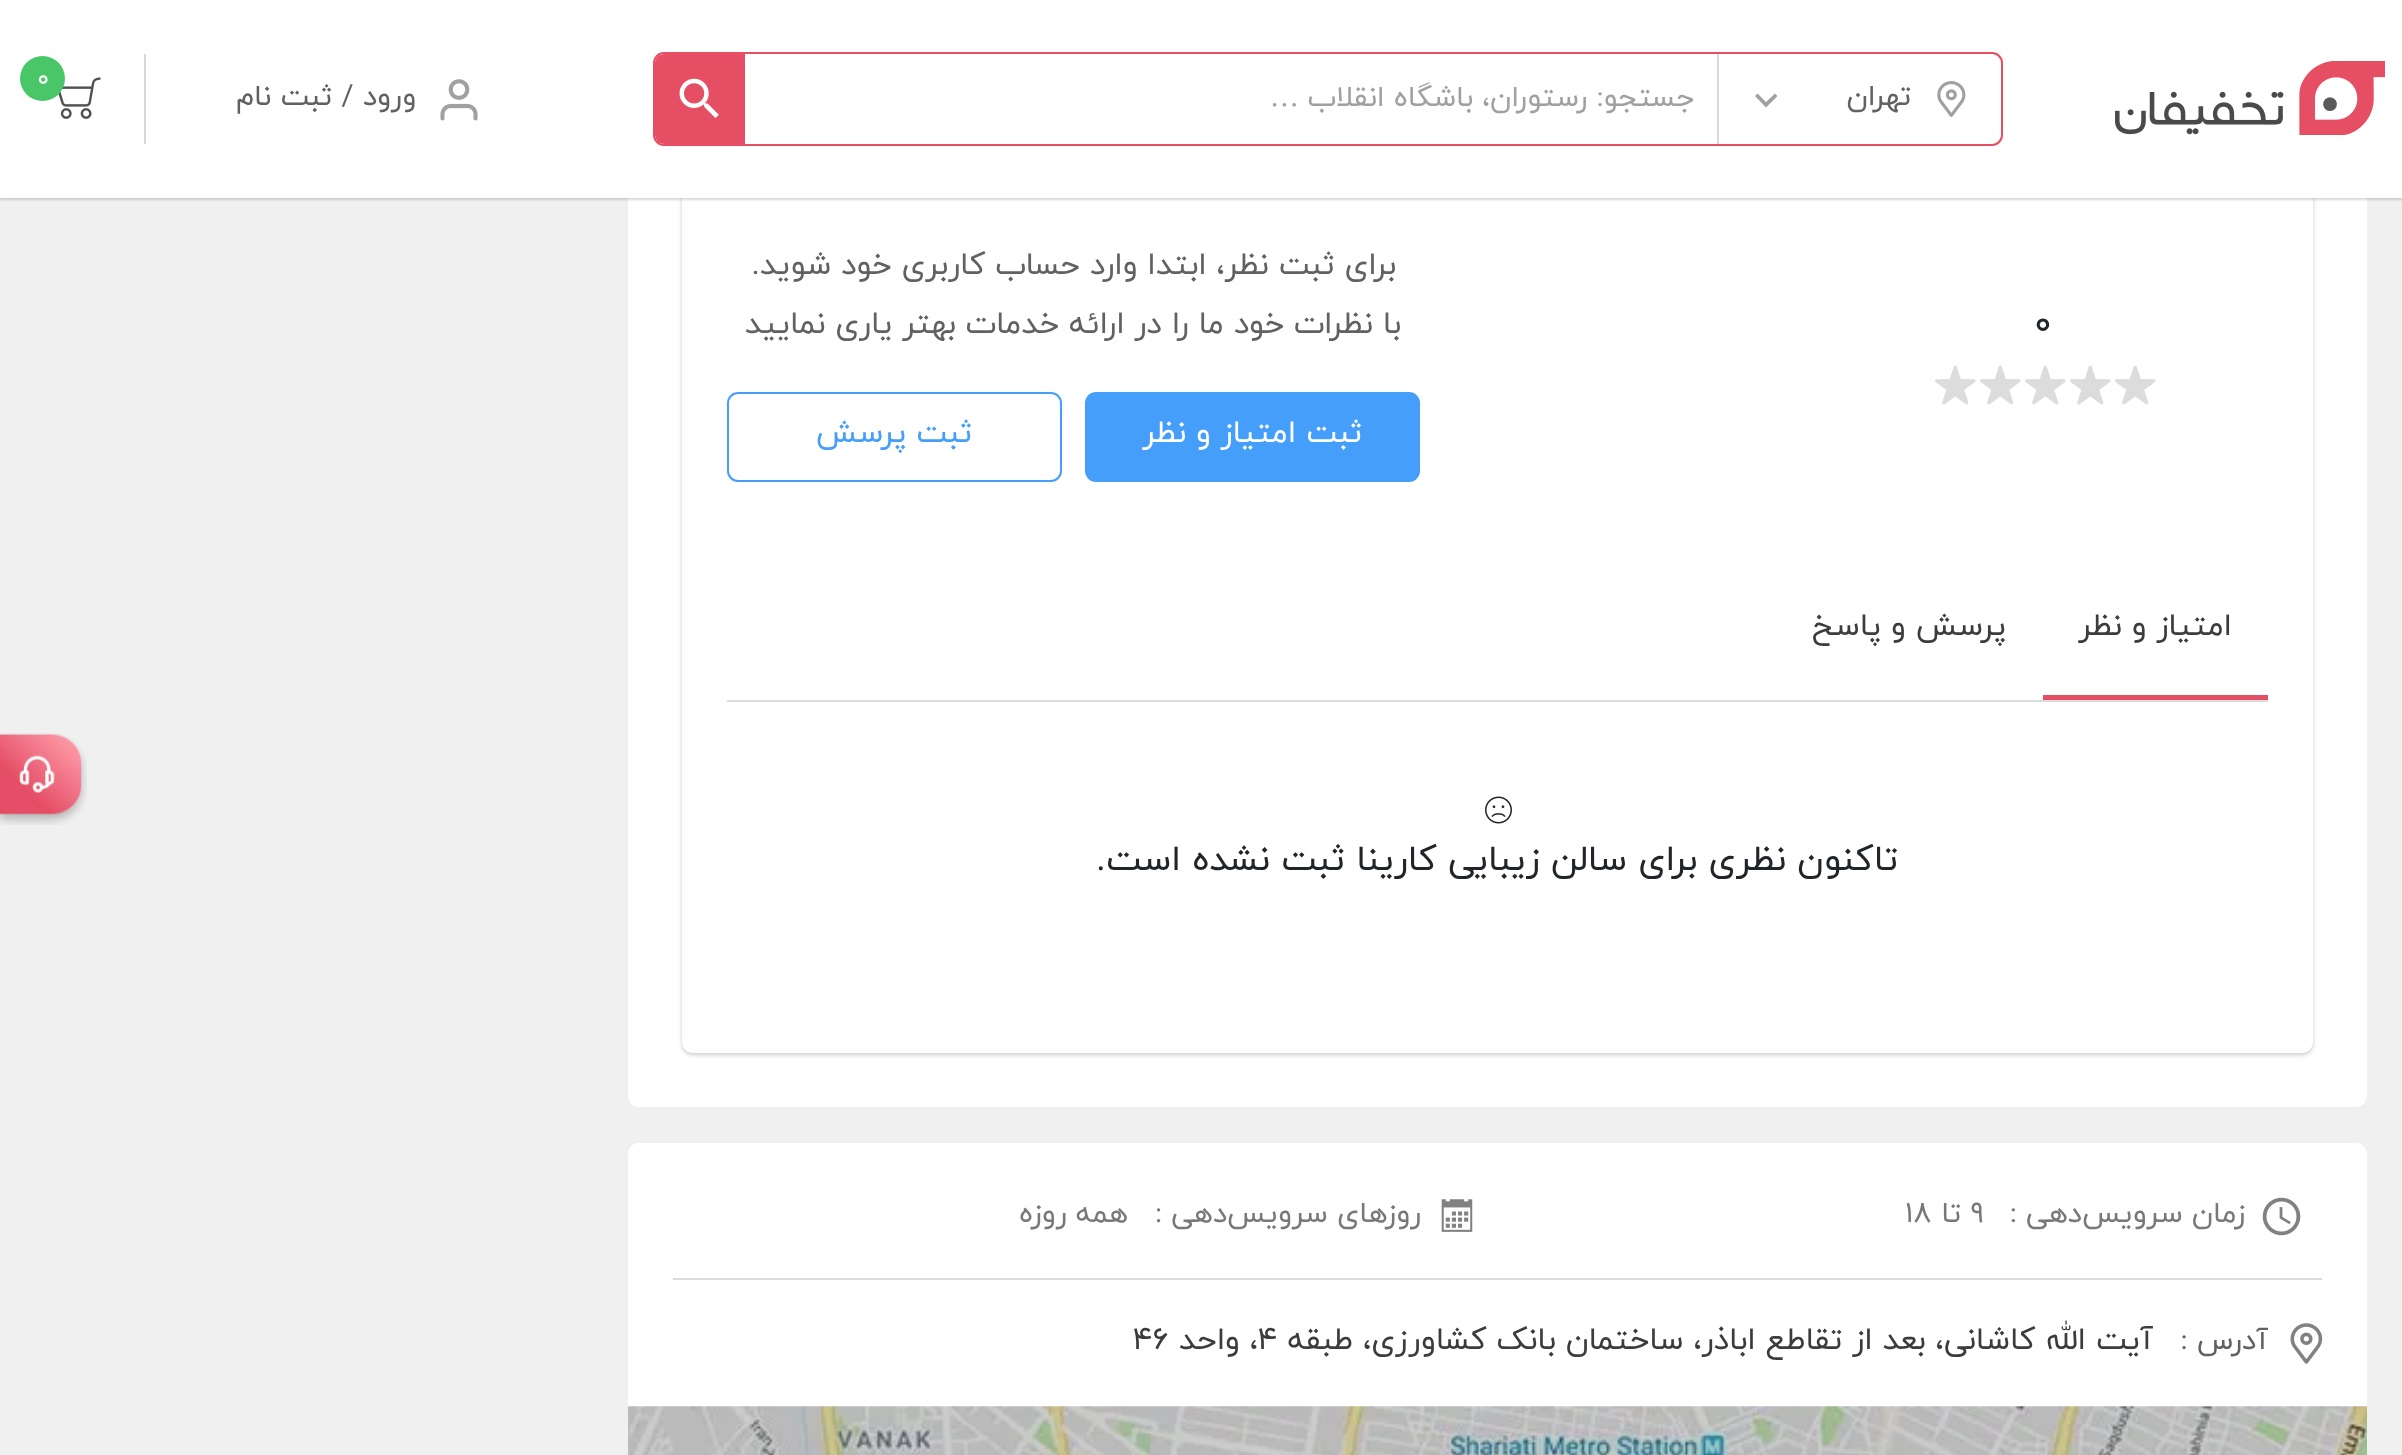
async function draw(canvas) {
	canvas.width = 2402;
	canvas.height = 1455;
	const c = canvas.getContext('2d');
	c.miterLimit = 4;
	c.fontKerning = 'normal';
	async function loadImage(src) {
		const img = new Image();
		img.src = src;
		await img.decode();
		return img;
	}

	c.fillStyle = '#f0f0f0';
	c.fillRect(0, 0, 2402, 1455);
	c.fillStyle = '#fff';
	c.beginPath();
	c.roundRect(628, -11, 1739, 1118, 11);
	c.fill();
	c.fillStyle = '#00000033';
	c.filter = 'blur(2px)';
	c.beginPath();
	c.roundRect(682, -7, 1631, 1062, 11);
	c.fill();
	c.filter = 'none';
	c.fillStyle = '#fff';
	c.beginPath();
	c.roundRect(682, -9, 1631, 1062, 11);
	c.fill();
	c.fillStyle = '#00000026';
	c.filter = 'blur(1px)';
	c.beginPath();
	c.rect(0, 2, 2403, 198);
	c.fill();
	c.filter = 'none';
	c.fillStyle = '#fff';
	c.fillRect(0, 0, 2402, 198);
	c.drawImage(await loadImage('img1.png'), 2115, 61, 270, 74);
	c.beginPath();
	c.roundRect(654, 53, 1348, 92, 10);
	c.strokeStyle = '#e54e63';
	c.lineWidth = 2;
	c.stroke();
	c.fillStyle = '#d9d9d9';
	c.fillRect(1717, 54, 2, 90);
	c.fillStyle = '#fff';
	c.beginPath();
	c.roundRect(1719, 54, 281, 90, [0, 11, 11, 0]);
	c.fill();
	c.drawImage(await loadImage('img2.png'), 1937, 81, 29, 36);
	c.direction = 'rtl';
	c.font = '29.25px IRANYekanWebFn';
	c.fillStyle = '#616161';
	c.fillText('تهران', 1911, 105);
	c.fillStyle = '#a0a0a0';
	c.beginPath();
	c.moveTo(1757.5, 93.5);
	c.lineTo(1766, 102);
	c.lineTo(1775, 93.5);
	c.lineTo(1777.5, 96);
	c.lineTo(1766, 107.5);
	c.lineTo(1755, 96);
	c.closePath();
	c.fill();
	c.fillText('جستجو: رستوران، باشگاه انقلاب', 1694, 106);
	c.font = '29.25px Liberation Serif';
	c.fillText('…', 1299, 106);
	c.fillStyle = '#e54e63';
	c.beginPath();
	c.roundRect(655, 54, 90, 90, [9, 0, 0, 9]);
	c.fill();
	c.drawImage(await loadImage('img3.png'), 679, 78, 40, 40);
	c.fillStyle = '#d9d9d9';
	c.fillRect(144, 54, 2, 90);
	c.drawImage(await loadImage('img4.png'), 58, 77, 43, 42);
	c.fillStyle = '#49c668';
	c.beginPath();
	c.arc(42.5, 78.5, 22.5, 0, 2 * Math.PI);
	c.fill();
	c.direction = 'ltr';
	c.font = '25px IRANYekanWebFn';
	c.fillStyle = '#fff';
	c.fillText('0', 37, 86);
	c.drawImage(await loadImage('img5.png'), 440, 79, 38, 42);
	c.direction = 'rtl';
	c.font = '29.25px IRANYekanWebFn';
	c.fillStyle = '#616161';
	c.fillText('ورود / ثبت نام', 416, 105);
	c.direction = 'ltr';
	c.font = '36px IRANYekanWebFn';
	c.fillStyle = '#212529';
	c.fillText('0', 2034, 334);
	c.drawImage(await loadImage('img6.png'), 2115, 365, 41, 40);
	c.drawImage(await loadImage('img6.png'), 2070, 365, 41, 40);
	c.drawImage(await loadImage('img6.png'), 2025, 365, 41, 40);
	c.drawImage(await loadImage('img6.png'), 1980, 365, 41, 40);
	c.drawImage(await loadImage('img6.png'), 1935, 365, 41, 40);
	c.direction = 'rtl';
	c.font = '31.5px IRANYekanWebFn';
	c.fillStyle = '#616161';
	c.fillText('برای ثبت نظر، ابتدا وارد حساب کاربری خود شوید.', 1396, 274);
	c.fillText('با نظرات خود ما را در ارائه خدمات بهتر یاری نمایید', 1401, 333);
	c.fillStyle = '#459efa';
	c.beginPath();
	c.roundRect(1086, 393, 333, 88, 10);
	c.fill();
	c.strokeStyle = '#459efa';
	c.stroke();
	c.fillStyle = '#fff';
	c.fillText('ثبت امتیاز و نظر', 1362, 442);
	c.beginPath();
	c.roundRect(728, 393, 333, 88, 10);
	c.stroke();
	c.fillStyle = '#459efa';
	c.fillText('ثبت پرسش', 972, 442);
	c.fillStyle = '#dcdcdc';
	c.fillRect(727, 700, 1541, 2);
	c.fillStyle = '#e54e63';
	c.fillRect(2043, 695, 225, 5);
	c.fillStyle = '#3c3c3c';
	c.fillText('امتیاز و نظر', 2232, 635);
	c.fillText('پرسش و پاسخ', 2006, 635);
	c.drawImage(await loadImage('img7.png'), 1485, 796, 27, 28);
	c.font = '36px IRANYekanWebFn';
	c.fillStyle = '#212529';
	c.fillText('تاکنون نظری برای سالن زیبایی کارینا ثبت نشده است.', 1898, 870);
	c.fillStyle = '#fff';
	c.beginPath();
	c.roundRect(628, 1143, 1739, 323, 11);
	c.fill();
	c.fillStyle = '#dcdcdc';
	c.fillRect(673, 1278, 1649, 2);
	c.drawImage(await loadImage('img8.png'), 2262, 1197, 39, 39);
	c.font = '29.25px IRANYekanWebFn';
	c.fillStyle = '#787878';
	c.fillText('زمان سرویس‌دهی :', 2245, 1222);
	c.direction = 'ltr';
	c.fillText('۹', 1970, 1222);
	c.direction = 'rtl';
	c.fillText('تا', 1961, 1222);
	c.direction = 'ltr';
	c.fillText('۱۸', 1905, 1222);
	c.drawImage(await loadImage('img9.png'), 1441, 1199, 32, 33);
	c.direction = 'rtl';
	c.fillText('روزهای سرویس‌دهی :', 1421, 1222);
	c.fillText('همه روزه', 1128, 1222);
	c.drawImage(await loadImage('img10.png'), 2290, 1323, 33, 41);
	c.fillStyle = '#616161';
	c.fillText('آدرس :', 2268, 1349);
	c.font = '31.5px IRANYekanWebFn';
	c.fillStyle = '#3c3c3c';
	c.fillText('آیت الله کاشانی، بعد از تقاطع اباذر، ساختمان بانک کشاورزی، طبقه', 2153, 1349);
	c.direction = 'ltr';
	c.fillText('4', 1258, 1349);
	c.direction = 'rtl';
	c.fillText('، واحد', 1258, 1349);
	c.direction = 'ltr';
	c.fillText('46', 1133, 1349);
	c.drawImage(await loadImage('img11.png'), 628, 1406, 1739, 49);
	c.drawImage(await loadImage('img12.png'), 0, 733, 87, 92);
}

draw(document.querySelector('canvas'));
